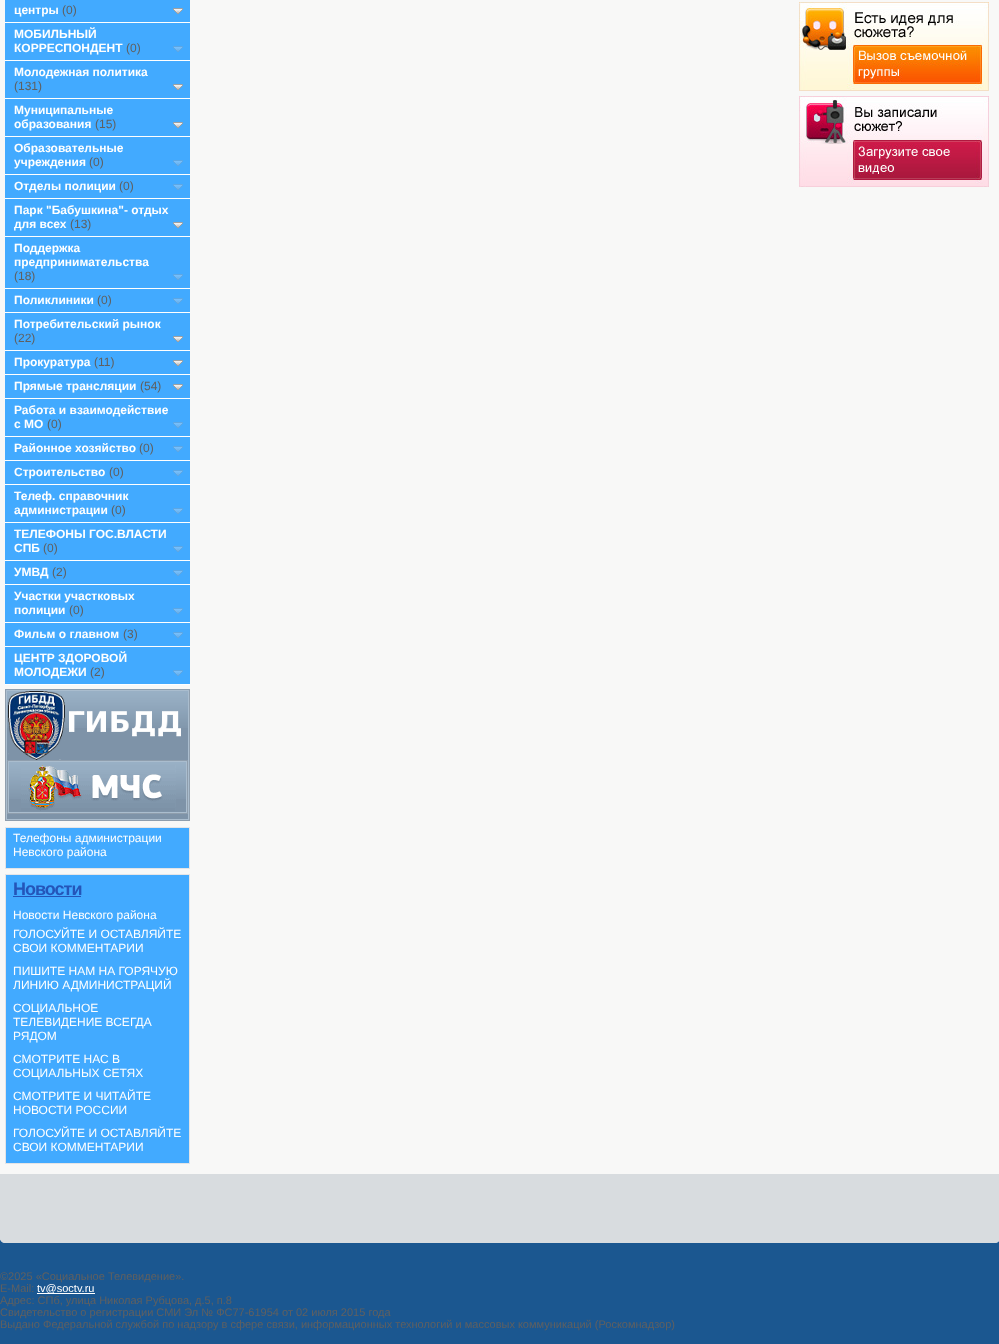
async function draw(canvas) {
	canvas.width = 999;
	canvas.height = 1344;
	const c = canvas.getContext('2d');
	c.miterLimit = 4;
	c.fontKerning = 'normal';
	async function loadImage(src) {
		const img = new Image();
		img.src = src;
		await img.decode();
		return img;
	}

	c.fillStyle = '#1b5790';
	c.fillRect(0, 0, 999, 1344);
	for (const [x, y, w, h, color] of [
		[0, 0, 999, 1174, '#f8f8f7'],
		[5, 0, 185, 22, '#42aaff'],
		[5, 22, 185, 1, '#fff'],
	]) {
		c.fillStyle = color;
		c.fillRect(x, y, w, h);
	}
	c.font = 'bold 12px Liberation Sans';
	c.fillText('центры', 14, 14);
	c.font = '12px Liberation Sans';
	c.fillStyle = '#606060';
	c.fillText('(0)', 62, 14);
	c.drawImage(await loadImage('img1.png'), 173, 8, 10, 6);
	c.fillStyle = '#42aaff';
	c.fillRect(5, 23, 185, 37);
	c.fillStyle = '#fff';
	c.fillRect(5, 60, 185, 1);
	c.font = 'bold 12px Liberation Sans';
	c.fillText('МОБИЛЬНЫЙ', 14, 38);
	c.fillText('КОРРЕСПОНДЕНТ', 14, 52);
	c.font = '12px Liberation Sans';
	c.fillStyle = '#606060';
	c.fillText('(0)', 126, 52);
	c.drawImage(await loadImage('img2.png'), 173, 46, 10, 6);
	c.fillStyle = '#42aaff';
	c.fillRect(5, 61, 185, 37);
	c.fillStyle = '#fff';
	c.fillRect(5, 98, 185, 1);
	c.font = 'bold 12px Liberation Sans';
	c.fillText('Молодежная политика', 14, 76);
	c.font = '12px Liberation Sans';
	c.fillStyle = '#606060';
	c.fillText('(131)', 14, 90);
	c.drawImage(await loadImage('img1.png'), 173, 84, 10, 6);
	c.fillStyle = '#42aaff';
	c.fillRect(5, 99, 185, 37);
	c.fillStyle = '#fff';
	c.fillRect(5, 136, 185, 1);
	c.font = 'bold 12px Liberation Sans';
	c.fillText('Муниципальные', 14, 114);
	c.fillText('образования', 14, 128);
	c.font = '12px Liberation Sans';
	c.fillStyle = '#606060';
	c.fillText('(15)', 95, 128);
	c.drawImage(await loadImage('img1.png'), 173, 122, 10, 6);
	c.fillStyle = '#42aaff';
	c.fillRect(5, 137, 185, 37);
	c.fillStyle = '#fff';
	c.fillRect(5, 174, 185, 1);
	c.font = 'bold 12px Liberation Sans';
	c.fillText('Образовательные', 14, 152);
	c.fillText('учреждения', 14, 166);
	c.font = '12px Liberation Sans';
	c.fillStyle = '#606060';
	c.fillText('(0)', 89, 166);
	c.drawImage(await loadImage('img2.png'), 173, 160, 10, 6);
	c.fillStyle = '#42aaff';
	c.fillRect(5, 175, 185, 23);
	c.fillStyle = '#fff';
	c.fillRect(5, 198, 185, 1);
	c.font = 'bold 12px Liberation Sans';
	c.fillText('Отделы полиции', 14, 190);
	c.font = '12px Liberation Sans';
	c.fillStyle = '#606060';
	c.fillText('(0)', 119, 190);
	c.drawImage(await loadImage('img2.png'), 173, 184, 10, 6);
	c.fillStyle = '#42aaff';
	c.fillRect(5, 199, 185, 37);
	c.fillStyle = '#fff';
	c.fillRect(5, 236, 185, 1);
	c.font = 'bold 12px Liberation Sans';
	c.fillText('Парк "Бабушкина"- отдых', 14, 214);
	c.fillText('для всех', 14, 228);
	c.font = '12px Liberation Sans';
	c.fillStyle = '#606060';
	c.fillText('(13)', 70, 228);
	c.drawImage(await loadImage('img1.png'), 173, 222, 10, 6);
	c.fillStyle = '#42aaff';
	c.fillRect(5, 237, 185, 51);
	c.fillStyle = '#fff';
	c.fillRect(5, 288, 185, 1);
	c.font = 'bold 12px Liberation Sans';
	c.fillText('Поддержка', 14, 252);
	c.fillText('предпринимательства', 14, 266);
	c.font = '12px Liberation Sans';
	c.fillStyle = '#606060';
	c.fillText('(18)', 14, 280);
	c.drawImage(await loadImage('img2.png'), 173, 274, 10, 6);
	c.fillStyle = '#42aaff';
	c.fillRect(5, 289, 185, 23);
	c.fillStyle = '#fff';
	c.fillRect(5, 312, 185, 1);
	c.font = 'bold 12px Liberation Sans';
	c.fillText('Поликлиники', 14, 304);
	c.font = '12px Liberation Sans';
	c.fillStyle = '#606060';
	c.fillText('(0)', 97, 304);
	c.drawImage(await loadImage('img2.png'), 173, 298, 10, 6);
	c.fillStyle = '#42aaff';
	c.fillRect(5, 313, 185, 37);
	c.fillStyle = '#fff';
	c.fillRect(5, 350, 185, 1);
	c.font = 'bold 12px Liberation Sans';
	c.fillText('Потребительский рынок', 14, 328);
	c.font = '12px Liberation Sans';
	c.fillStyle = '#606060';
	c.fillText('(22)', 14, 342);
	c.drawImage(await loadImage('img1.png'), 173, 336, 10, 6);
	c.fillStyle = '#42aaff';
	c.fillRect(5, 351, 185, 23);
	c.fillStyle = '#fff';
	c.fillRect(5, 374, 185, 1);
	c.font = 'bold 12px Liberation Sans';
	c.fillText('Прокуратура', 14, 366);
	c.font = '12px Liberation Sans';
	c.fillStyle = '#606060';
	c.fillText('(11)', 94, 366);
	c.drawImage(await loadImage('img1.png'), 173, 360, 10, 6);
	c.fillStyle = '#42aaff';
	c.fillRect(5, 375, 185, 23);
	c.fillStyle = '#fff';
	c.fillRect(5, 398, 185, 1);
	c.font = 'bold 12px Liberation Sans';
	c.fillText('Прямые трансляции', 14, 390);
	c.font = '12px Liberation Sans';
	c.fillStyle = '#606060';
	c.fillText('(54)', 140, 390);
	c.drawImage(await loadImage('img1.png'), 173, 384, 10, 6);
	c.fillStyle = '#42aaff';
	c.fillRect(5, 399, 185, 37);
	c.fillStyle = '#fff';
	c.fillRect(5, 436, 185, 1);
	c.font = 'bold 12px Liberation Sans';
	c.fillText('Работа и взаимодействие', 14, 414);
	c.fillText('с МО', 14, 428);
	c.font = '12px Liberation Sans';
	c.fillStyle = '#606060';
	c.fillText('(0)', 47, 428);
	c.drawImage(await loadImage('img2.png'), 173, 422, 10, 6);
	c.fillStyle = '#42aaff';
	c.fillRect(5, 437, 185, 23);
	c.fillStyle = '#fff';
	c.fillRect(5, 460, 185, 1);
	c.font = 'bold 12px Liberation Sans';
	c.fillText('Районное хозяйство', 14, 452);
	c.font = '12px Liberation Sans';
	c.fillStyle = '#606060';
	c.fillText('(0)', 139, 452);
	c.drawImage(await loadImage('img2.png'), 173, 446, 10, 6);
	c.fillStyle = '#42aaff';
	c.fillRect(5, 461, 185, 23);
	c.fillStyle = '#fff';
	c.fillRect(5, 484, 185, 1);
	c.font = 'bold 12px Liberation Sans';
	c.fillText('Строительство', 14, 476);
	c.font = '12px Liberation Sans';
	c.fillStyle = '#606060';
	c.fillText('(0)', 109, 476);
	c.drawImage(await loadImage('img2.png'), 173, 470, 10, 6);
	c.fillStyle = '#42aaff';
	c.fillRect(5, 485, 185, 37);
	c.fillStyle = '#fff';
	c.fillRect(5, 522, 185, 1);
	c.font = 'bold 12px Liberation Sans';
	c.fillText('Телеф. справочник', 14, 500);
	c.fillText('администрации', 14, 514);
	c.font = '12px Liberation Sans';
	c.fillStyle = '#606060';
	c.fillText('(0)', 111, 514);
	c.drawImage(await loadImage('img2.png'), 173, 508, 10, 6);
	c.fillStyle = '#42aaff';
	c.fillRect(5, 523, 185, 37);
	c.fillStyle = '#fff';
	c.fillRect(5, 560, 185, 1);
	c.font = 'bold 12px Liberation Sans';
	c.fillText('ТЕЛЕФОНЫ ГОС.ВЛАСТИ', 14, 538);
	c.fillText('СПБ', 14, 552);
	c.font = '12px Liberation Sans';
	c.fillStyle = '#606060';
	c.fillText('(0)', 43, 552);
	c.drawImage(await loadImage('img2.png'), 173, 546, 10, 6);
	c.fillStyle = '#42aaff';
	c.fillRect(5, 561, 185, 23);
	c.fillStyle = '#fff';
	c.fillRect(5, 584, 185, 1);
	c.font = 'bold 12px Liberation Sans';
	c.fillText('УМВД', 14, 576);
	c.font = '12px Liberation Sans';
	c.fillStyle = '#606060';
	c.fillText('(2)', 52, 576);
	c.drawImage(await loadImage('img2.png'), 173, 570, 10, 6);
	c.fillStyle = '#42aaff';
	c.fillRect(5, 585, 185, 37);
	c.fillStyle = '#fff';
	c.fillRect(5, 622, 185, 1);
	c.font = 'bold 12px Liberation Sans';
	c.fillText('Участки участковых', 14, 600);
	c.fillText('полиции', 14, 614);
	c.font = '12px Liberation Sans';
	c.fillStyle = '#606060';
	c.fillText('(0)', 69, 614);
	c.drawImage(await loadImage('img2.png'), 173, 608, 10, 6);
	c.fillStyle = '#42aaff';
	c.fillRect(5, 623, 185, 23);
	c.fillStyle = '#fff';
	c.fillRect(5, 646, 185, 1);
	c.font = 'bold 12px Liberation Sans';
	c.fillText('Фильм о главном', 14, 638);
	c.font = '12px Liberation Sans';
	c.fillStyle = '#606060';
	c.fillText('(3)', 123, 638);
	c.drawImage(await loadImage('img2.png'), 173, 632, 10, 6);
	c.fillStyle = '#42aaff';
	c.fillRect(5, 647, 185, 37);
	c.fillStyle = '#fff';
	c.fillRect(5, 684, 185, 1);
	c.font = 'bold 12px Liberation Sans';
	c.fillText('ЦЕНТР ЗДОРОВОЙ', 14, 662);
	c.fillText('МОЛОДЕЖИ', 14, 676);
	c.font = '12px Liberation Sans';
	c.fillStyle = '#606060';
	c.fillText('(2)', 90, 676);
	c.drawImage(await loadImage('img2.png'), 173, 670, 10, 6);
	c.fillStyle = '#7e93a8';
	c.fillRect(7, 728, 181, 91);
	c.drawImage(await loadImage('img3.png'), 7, 691, 181, 37);
	c.strokeStyle = '#8f9ead';
	c.strokeRect(5.5, 689.5, 184, 131);
	c.strokeStyle = '#aabdce';
	c.strokeRect(6.5, 690.5, 182, 129);
	c.drawImage(await loadImage('img4.png'), 8, 691, 173, 69);
	c.drawImage(await loadImage('img5.png'), 9, 762, 177, 37);
	c.strokeStyle = '#8f9ead';
	c.strokeRect(7.5, 760.5, 180, 53);
	c.strokeStyle = '#aabdce';
	c.strokeRect(8.5, 761.5, 178, 51);
	c.drawImage(await loadImage('img6.png'), 21, 765, 155, 46);
	for (const [x, y, w, h, color] of [
		[189, 831, 1, 38, '#e4e4e6'],
		[5, 868, 185, 1, '#e4e4e6'],
		[5, 831, 1, 38, '#e4e4e6'],
		[5, 828, 185, 4, '#42aaff'],
		[5, 827, 185, 1, '#e5e5e7'],
		[189, 827, 1, 5, '#e5e5e7'],
		[5, 827, 1, 5, '#e5e5e7'],
		[6, 832, 183, 36, '#42aaff'],
	]) {
		c.fillStyle = color;
		c.fillRect(x, y, w, h);
	}
	c.fillStyle = '#fff';
	c.fillText('Телефоны администрации', 13, 842);
	c.fillText('Невского района', 13, 856);
	for (const [x, y, w, h, color] of [
		[5, 874, 185, 1, '#e5e5e7'],
		[189, 899, 1, 265, '#e4e4e6'],
		[189, 874, 1, 26, '#e5e5e7'],
		[5, 1163, 185, 1, '#e4e4e6'],
		[5, 899, 1, 265, '#e4e4e6'],
		[5, 874, 1, 26, '#e5e5e7'],
		[6, 875, 183, 288, '#42aaff'],
	]) {
		c.fillStyle = color;
		c.fillRect(x, y, w, h);
	}
	c.letterSpacing = '-1px';
	c.font = 'bold 18px Liberation Sans';
	c.fillStyle = '#2455b9';
	c.fillText('Новости', 13, 895);
	c.fillRect(13, 896, 68, 1);
	c.letterSpacing = '0px';
	c.font = '12px Liberation Sans';
	c.fillStyle = '#fff';
	for (const [text, x, y] of [
		['Новости Невского района', 13, 919],
		['ГОЛОСУЙТЕ И ОСТАВЛЯЙТЕ', 13, 938],
		['СВОИ КОММЕНТАРИИ', 13, 952],
		['ПИШИТЕ НАМ НА ГОРЯЧУЮ', 13, 975],
		['ЛИНИЮ АДМИНИСТРАЦИЙ', 13, 989],
		['СОЦИАЛЬНОЕ', 13, 1012],
		['ТЕЛЕВИДЕНИЕ ВСЕГДА', 13, 1026],
		['РЯДОМ', 13, 1040],
		['СМОТРИТЕ НАС В', 13, 1063],
		['СОЦИАЛЬНЫХ СЕТЯХ', 13, 1077],
		['СМОТРИТЕ И ЧИТАЙТЕ', 13, 1100],
		['НОВОСТИ РОССИИ', 13, 1114],
		['ГОЛОСУЙТЕ И ОСТАВЛЯЙТЕ', 13, 1137],
		['СВОИ КОММЕНТАРИИ', 13, 1151],
	]) {
		c.fillText(text, x, y);
	}
	c.drawImage(await loadImage('img7.png'), 799, 2, 190, 89);
	c.drawImage(await loadImage('img8.png'), 799, 96, 190, 91);
	c.drawImage(await loadImage('img9.png'), 0, 1174, 999, 69);
	c.font = '11px Liberation Sans';
	c.fillStyle = '#606060';
	c.fillText('©2025 «Социальное Телевидение».', 0, 1280);
	c.fillText('E-Mail:', 0, 1292);
	c.fillStyle = '#fff';
	c.fillRect(37, 1293, 58, 1);
	c.fillText('tv@soctv.ru', 37, 1292);
	c.fillStyle = '#606060';
	for (const [text, x, y] of [
		['Адрес: СПб, улица Николая Рубцова, д.5, п.8', 0, 1304],
		['Свидетельство о регистрации СМИ Эл № ФС77-61954 от 02 июля 2015 года', 0, 1316],
		['Выдано Федеральной службой по надзору в сфере связи, информационных технологий и массовых коммуникаций (Роскомнадзор)', 0, 1328],
	]) {
		c.fillText(text, x, y);
	}
}

draw(document.querySelector('canvas'));
